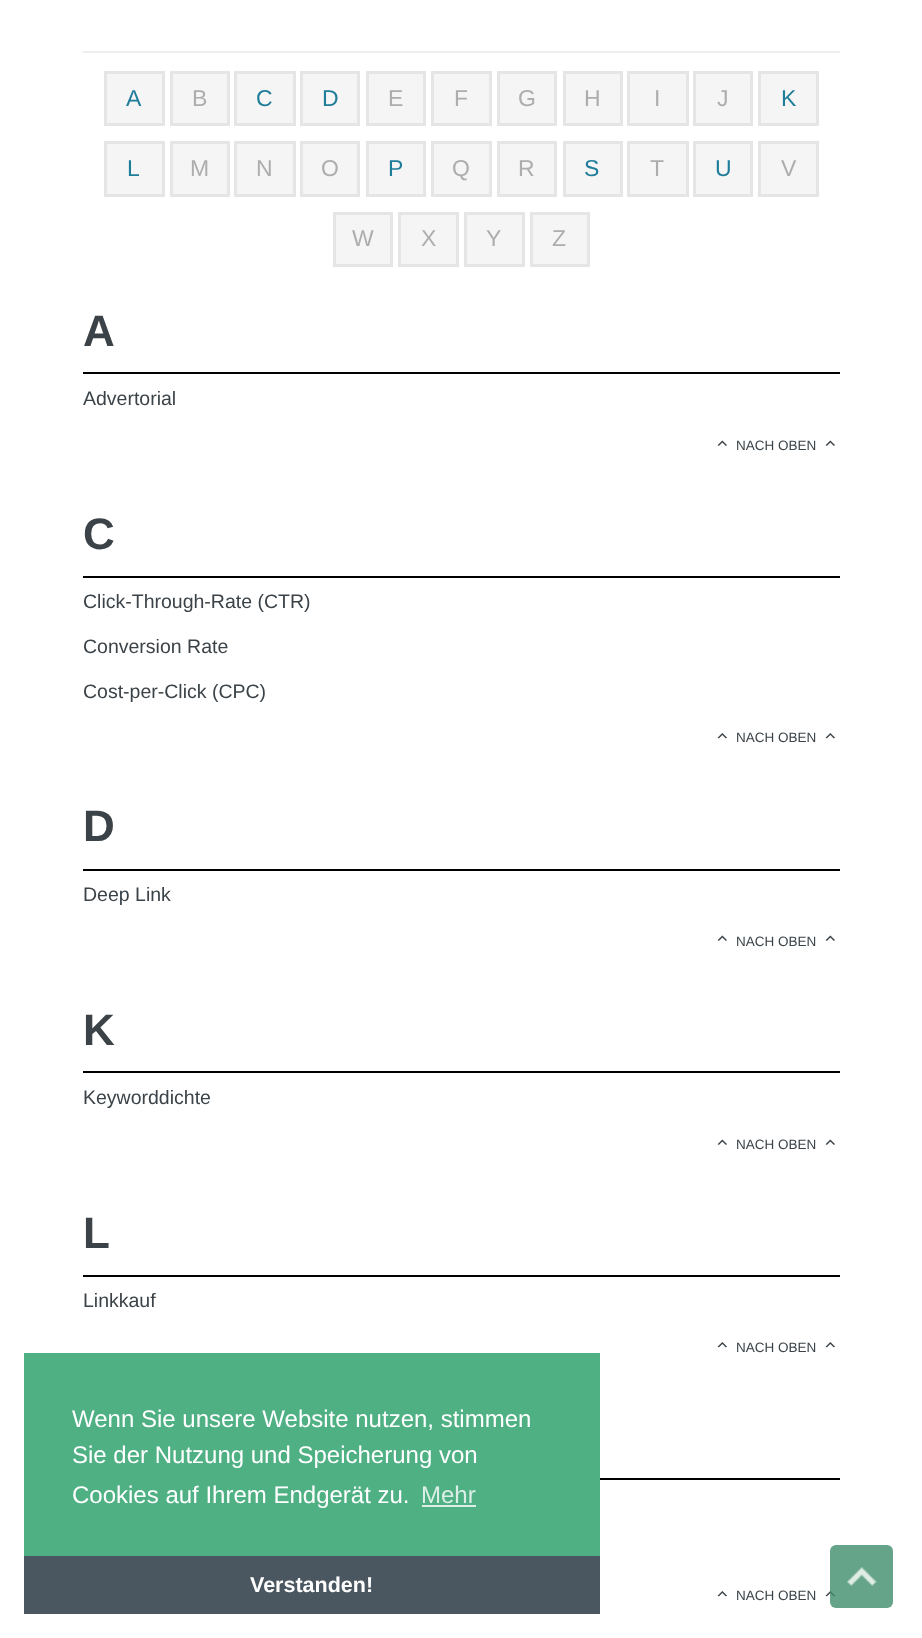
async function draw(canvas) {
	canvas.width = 922;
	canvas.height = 1638;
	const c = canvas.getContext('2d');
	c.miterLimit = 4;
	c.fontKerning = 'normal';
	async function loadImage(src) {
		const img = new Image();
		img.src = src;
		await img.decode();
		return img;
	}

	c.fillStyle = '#fff';
	c.fillRect(0, 0, 922, 1638);
	c.fillStyle = '#eee';
	c.fillRect(83, 51, 757, 2);
	c.fillStyle = '#f5f5f5';
	c.beginPath();
	c.rect(105.5, 72.5, 58, 52);
	c.fill();
	c.strokeStyle = '#e5e5e5';
	c.lineWidth = 3;
	c.stroke();
	c.font = '23px Liberation Sans';
	c.fillStyle = '#1f7d9a';
	c.fillText('A', 126, 106);
	c.fillStyle = '#f5f5f5';
	c.beginPath();
	c.rect(171.5, 72.5, 57, 52);
	c.fill();
	c.stroke();
	c.fillStyle = '#adadad';
	c.fillText('B', 192, 106);
	c.fillStyle = '#f5f5f5';
	c.beginPath();
	c.rect(235.5, 72.5, 59, 52);
	c.fill();
	c.stroke();
	c.fillStyle = '#1f7d9a';
	c.fillText('C', 256, 106);
	c.fillStyle = '#f5f5f5';
	c.beginPath();
	c.rect(301.5, 72.5, 57, 52);
	c.fill();
	c.stroke();
	c.fillStyle = '#1f7d9a';
	c.fillText('D', 322, 106);
	c.fillStyle = '#f5f5f5';
	c.beginPath();
	c.rect(367.5, 72.5, 57, 52);
	c.fill();
	c.stroke();
	c.fillStyle = '#adadad';
	c.fillText('E', 388, 106);
	c.fillStyle = '#f5f5f5';
	c.beginPath();
	c.rect(432.5, 72.5, 58, 52);
	c.fill();
	c.stroke();
	c.fillStyle = '#adadad';
	c.fillText('F', 454, 106);
	c.fillStyle = '#f5f5f5';
	c.beginPath();
	c.rect(498.5, 72.5, 57, 52);
	c.fill();
	c.stroke();
	c.fillStyle = '#adadad';
	c.fillText('G', 518, 106);
	c.fillStyle = '#f5f5f5';
	c.beginPath();
	c.rect(564.5, 72.5, 57, 52);
	c.fill();
	c.stroke();
	c.fillStyle = '#adadad';
	c.fillText('H', 584, 106);
	c.fillStyle = '#f5f5f5';
	c.beginPath();
	c.rect(628.5, 72.5, 59, 52);
	c.fill();
	c.stroke();
	c.fillStyle = '#adadad';
	c.fillText('I', 654, 106);
	c.fillStyle = '#f5f5f5';
	c.beginPath();
	c.rect(694.5, 72.5, 57, 52);
	c.fill();
	c.stroke();
	c.fillStyle = '#adadad';
	c.fillText('J', 717, 106);
	c.fillStyle = '#f5f5f5';
	c.beginPath();
	c.rect(759.5, 72.5, 58, 52);
	c.fill();
	c.stroke();
	c.fillStyle = '#1f7d9a';
	c.fillText('K', 781, 106);
	c.fillStyle = '#f5f5f5';
	c.beginPath();
	c.rect(105.5, 142.5, 58, 53);
	c.fill();
	c.stroke();
	c.fillStyle = '#1f7d9a';
	c.fillText('L', 127, 176);
	c.fillStyle = '#f5f5f5';
	c.beginPath();
	c.rect(171.5, 142.5, 57, 53);
	c.fill();
	c.stroke();
	c.fillStyle = '#adadad';
	c.fillText('M', 190, 176);
	c.fillStyle = '#f5f5f5';
	c.beginPath();
	c.rect(235.5, 142.5, 59, 53);
	c.fill();
	c.stroke();
	c.fillStyle = '#adadad';
	c.fillText('N', 256, 176);
	c.fillStyle = '#f5f5f5';
	c.beginPath();
	c.rect(301.5, 142.5, 57, 53);
	c.fill();
	c.stroke();
	c.fillStyle = '#adadad';
	c.fillText('O', 321, 176);
	c.fillStyle = '#f5f5f5';
	c.beginPath();
	c.rect(367.5, 142.5, 57, 53);
	c.fill();
	c.stroke();
	c.fillStyle = '#1f7d9a';
	c.fillText('P', 388, 176);
	c.fillStyle = '#f5f5f5';
	c.beginPath();
	c.rect(432.5, 142.5, 58, 53);
	c.fill();
	c.stroke();
	c.fillStyle = '#adadad';
	c.fillText('Q', 452, 176);
	c.fillStyle = '#f5f5f5';
	c.beginPath();
	c.rect(498.5, 142.5, 57, 53);
	c.fill();
	c.stroke();
	c.fillStyle = '#adadad';
	c.fillText('R', 518, 176);
	c.fillStyle = '#f5f5f5';
	c.beginPath();
	c.rect(564.5, 142.5, 57, 53);
	c.fill();
	c.stroke();
	c.fillStyle = '#1f7d9a';
	c.fillText('S', 584, 176);
	c.fillStyle = '#f5f5f5';
	c.beginPath();
	c.rect(628.5, 142.5, 59, 53);
	c.fill();
	c.stroke();
	c.fillStyle = '#adadad';
	c.fillText('T', 650, 176);
	c.fillStyle = '#f5f5f5';
	c.beginPath();
	c.rect(694.5, 142.5, 57, 53);
	c.fill();
	c.stroke();
	c.fillStyle = '#1f7d9a';
	c.fillText('U', 715, 176);
	c.fillStyle = '#f5f5f5';
	c.beginPath();
	c.rect(759.5, 142.5, 58, 53);
	c.fill();
	c.stroke();
	c.fillStyle = '#adadad';
	c.fillText('V', 781, 176);
	c.fillStyle = '#f5f5f5';
	c.beginPath();
	c.rect(334.5, 213.5, 57, 52);
	c.fill();
	c.stroke();
	c.fillStyle = '#adadad';
	c.fillText('W', 352, 246);
	c.fillStyle = '#f5f5f5';
	c.beginPath();
	c.rect(399.5, 213.5, 58, 52);
	c.fill();
	c.stroke();
	c.fillStyle = '#adadad';
	c.fillText('X', 421, 246);
	c.fillStyle = '#f5f5f5';
	c.beginPath();
	c.rect(465.5, 213.5, 58, 52);
	c.fill();
	c.stroke();
	c.fillStyle = '#adadad';
	c.fillText('Y', 486, 246);
	c.fillStyle = '#f5f5f5';
	c.beginPath();
	c.rect(531.5, 213.5, 57, 52);
	c.fill();
	c.stroke();
	c.fillStyle = '#adadad';
	c.fillText('Z', 552, 246);
	c.fillStyle = '#000';
	c.fillRect(83, 372, 757, 2);
	c.font = 'bold 44px Liberation Sans';
	c.fillStyle = '#3b4348';
	c.fillText('A', 83, 346);
	c.font = '19.5px Liberation Sans';
	c.fillText('Advertorial', 83, 405);
	c.drawImage(await loadImage('img1.png'), 717, 440, 10, 6);
	c.font = '13.5px Liberation Sans';
	c.fillText('NACH OBEN', 736, 450);
	c.drawImage(await loadImage('img1.png'), 825, 440, 10, 6);
	c.fillStyle = '#000';
	c.fillRect(83, 576, 757, 2);
	c.font = 'bold 44px Liberation Sans';
	c.fillStyle = '#3b4348';
	c.fillText('C', 83, 549);
	c.font = '19.5px Liberation Sans';
	for (const [text, x, y] of [
		['Click-Through-Rate (CTR)', 83, 608],
		['Conversion Rate', 83, 653],
		['Cost-per-Click (CPC)', 83, 698],
	]) {
		c.fillText(text, x, y);
	}
	c.drawImage(await loadImage('img2.png'), 717, 733, 10, 6);
	c.font = '13.5px Liberation Sans';
	c.fillText('NACH OBEN', 736, 742);
	c.drawImage(await loadImage('img2.png'), 825, 733, 10, 6);
	c.fillStyle = '#000';
	c.fillRect(83, 869, 757, 2);
	c.font = 'bold 44px Liberation Sans';
	c.fillStyle = '#3b4348';
	c.fillText('D', 83, 841);
	c.font = '19.5px Liberation Sans';
	c.fillText('Deep Link', 83, 901);
	c.drawImage(await loadImage('img1.png'), 717, 935, 10, 6);
	c.font = '13.5px Liberation Sans';
	c.fillText('NACH OBEN', 736, 946);
	c.drawImage(await loadImage('img1.png'), 825, 935, 10, 6);
	c.fillStyle = '#000';
	c.fillRect(83, 1071, 757, 2);
	c.font = 'bold 44px Liberation Sans';
	c.fillStyle = '#3b4348';
	c.fillText('K', 83, 1045);
	c.font = '19.5px Liberation Sans';
	c.fillText('Keyworddichte', 83, 1104);
	c.drawImage(await loadImage('img1.png'), 717, 1139, 10, 6);
	c.font = '13.5px Liberation Sans';
	c.fillText('NACH OBEN', 736, 1149);
	c.drawImage(await loadImage('img1.png'), 825, 1139, 10, 6);
	c.fillStyle = '#000';
	c.fillRect(83, 1275, 757, 2);
	c.font = 'bold 44px Liberation Sans';
	c.fillStyle = '#3b4348';
	c.fillText('L', 83, 1248);
	c.font = '19.5px Liberation Sans';
	c.fillText('Linkkauf', 83, 1307);
	c.drawImage(await loadImage('img2.png'), 717, 1342, 10, 6);
	c.font = '13.5px Liberation Sans';
	c.fillText('NACH OBEN', 736, 1352);
	c.drawImage(await loadImage('img2.png'), 825, 1342, 10, 6);
	c.fillStyle = '#000';
	c.fillRect(600, 1478, 240, 2);
	c.drawImage(await loadImage('img2.png'), 717, 1591, 10, 6);
	c.fillStyle = '#3b4348';
	c.fillText('NACH OBEN', 736, 1600);
	c.drawImage(await loadImage('img2.png'), 825, 1591, 10, 6);
	c.fillStyle = '#4fb084';
	c.fillRect(24, 1353, 576, 203);
	c.font = '24px Liberation Sans';
	c.fillStyle = '#fff';
	for (const [text, x, y] of [
		['Wenn Sie unsere Website nutzen, stimmen', 72, 1427],
		['Sie der Nutzung und Speicherung von', 72, 1463],
		['Cookies auf Ihrem Endgerät zu.', 72, 1503],
	]) {
		c.fillText(text, x, y);
	}
	c.fillStyle = '#dcefe6';
	c.fillText('Mehr', 421, 1503);
	c.fillRect(422, 1505, 54, 2);
	c.fillStyle = '#4b5760';
	c.fillRect(24, 1556, 576, 58);
	c.font = 'bold 21.5px Liberation Sans';
	c.fillStyle = '#fff';
	c.fillText('Verstanden!', 250, 1592);
	c.fillStyle = '#3f8d6acc';
	c.beginPath();
	c.roundRect(830, 1545, 63, 63, 6);
	c.fill();
	c.drawImage(await loadImage('img3.png'), 847, 1567, 30, 19);
}

draw(document.querySelector('canvas'));
